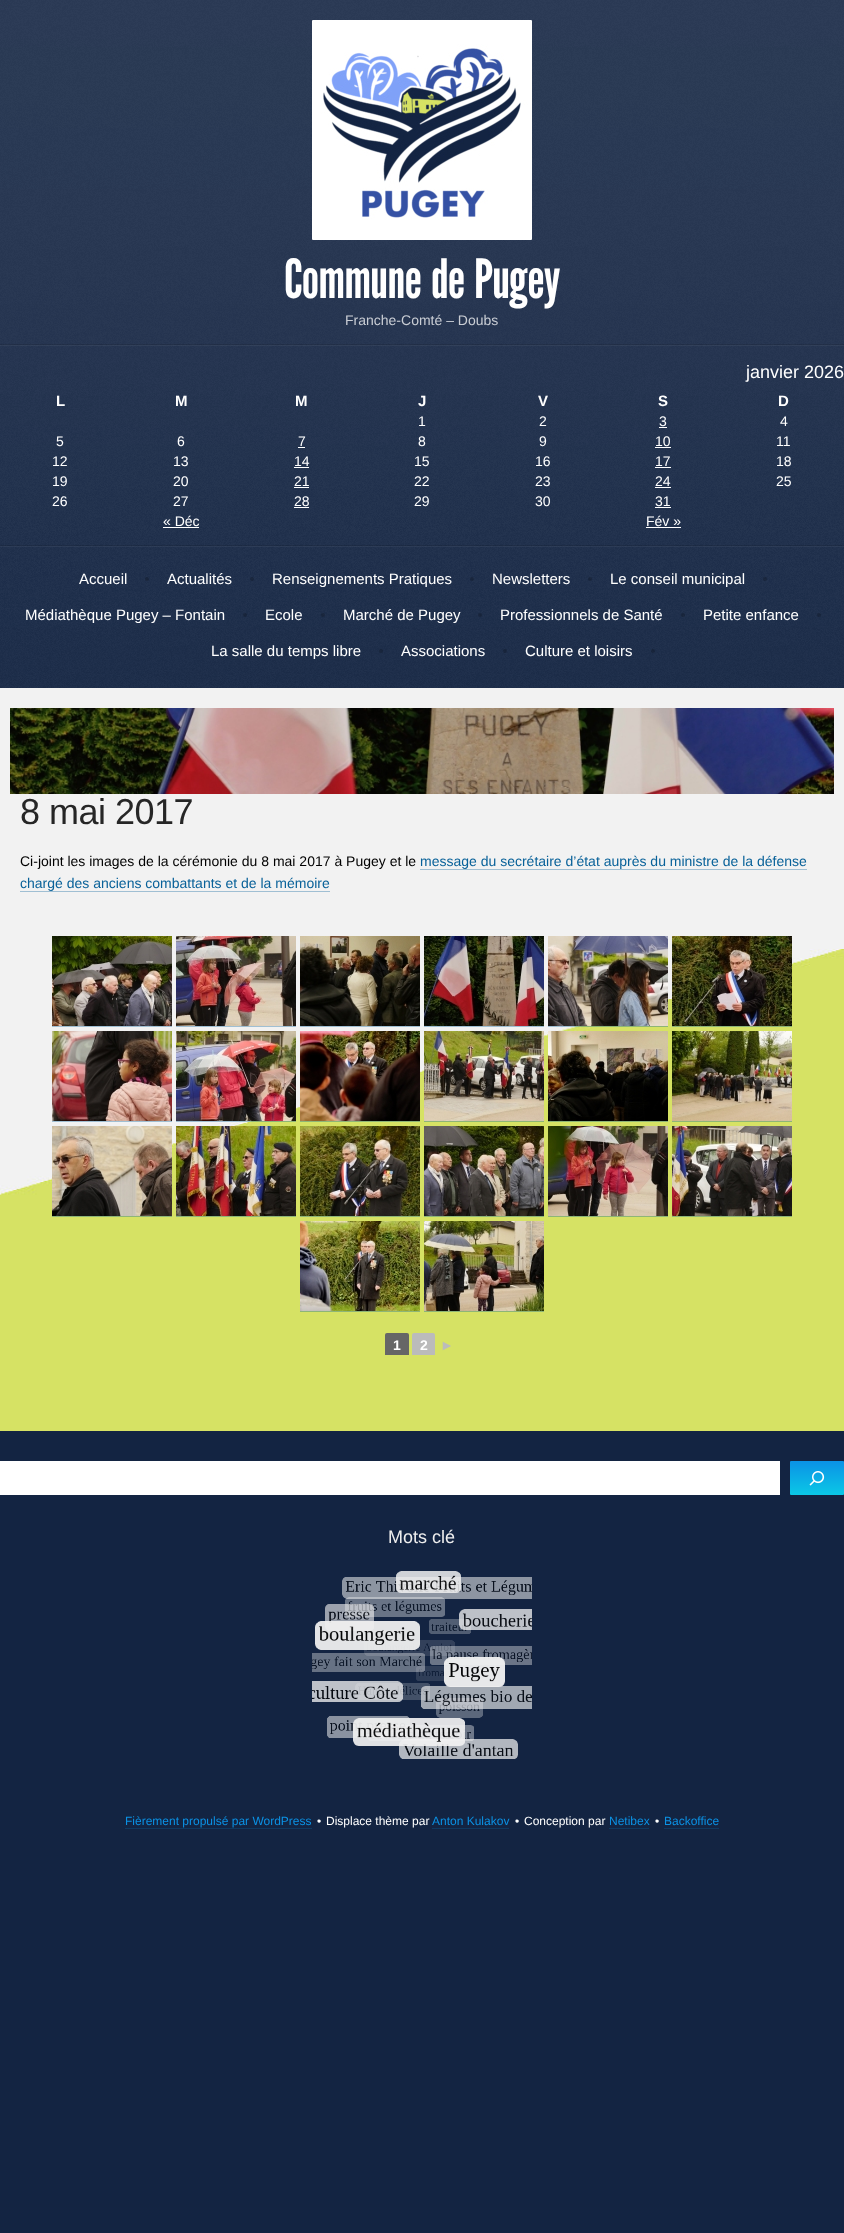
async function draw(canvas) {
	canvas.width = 844;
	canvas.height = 2233;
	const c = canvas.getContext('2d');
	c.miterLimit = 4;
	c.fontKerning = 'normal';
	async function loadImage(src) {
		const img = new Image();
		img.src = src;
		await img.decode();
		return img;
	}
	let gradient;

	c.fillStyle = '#132442';
	c.fillRect(0, 0, 844, 2233);
	c.drawImage(await loadImage('img1.png'), 0, 0, 844, 688);
	c.fillStyle = '#ffffff0d';
	c.fillRect(0, 345, 844, 1);
	c.fillStyle = '#0000001a';
	c.fillRect(0, 344, 844, 1);
	c.drawImage(await loadImage('img2.png'), 312, 20, 220, 220);
	c.letterSpacing = '-1px';
	c.font = '54px League Gothic';
	c.fillStyle = '#fff';
	c.fillText('Commune de Pugey', 284, 298);
	c.letterSpacing = '0px';
	c.font = '14px Liberation Sans';
	c.fillStyle = '#c9cdd4';
	c.fillText('Franche-Comté – Doubs', 345, 325);
	c.fillStyle = '#ffffff0d';
	c.fillRect(0, 546, 844, 1);
	c.fillStyle = '#0000001a';
	c.fillRect(0, 545, 844, 1);
	c.font = '18px Liberation Sans';
	c.fillStyle = '#fff';
	c.fillText('janvier 2026', 746, 378);
	c.font = 'bold 15px Liberation Sans';
	for (const [text, x, y] of [
		['L', 56, 406],
		['M', 175, 406],
		['M', 295, 406],
		['J', 418, 406],
		['V', 538, 406],
		['S', 658, 406],
		['D', 778, 406],
	]) {
		c.fillText(text, x, y);
	}
	c.font = '14px Liberation Sans';
	for (const [text, x, y] of [
		['1', 418, 426],
		['2', 539, 426],
		['3', 659, 426],
	]) {
		c.fillText(text, x, y);
	}
	c.fillRect(659, 427, 8, 1);
	for (const [text, x, y] of [
		['4', 780, 426],
		['5', 56, 446],
		['6', 177, 446],
		['7', 298, 446],
	]) {
		c.fillText(text, x, y);
	}
	c.fillRect(298, 447, 7, 1);
	for (const [text, x, y] of [
		['8', 418, 446],
		['9', 539, 446],
		['10', 655, 446],
	]) {
		c.fillText(text, x, y);
	}
	c.fillRect(655, 447, 16, 1);
	for (const [text, x, y] of [
		['11', 776, 446],
		['12', 52, 466],
		['13', 173, 466],
		['14', 294, 466],
	]) {
		c.fillText(text, x, y);
	}
	c.fillRect(294, 467, 15, 1);
	for (const [text, x, y] of [
		['15', 414, 466],
		['16', 535, 466],
		['17', 655, 466],
	]) {
		c.fillText(text, x, y);
	}
	c.fillRect(655, 467, 16, 1);
	for (const [text, x, y] of [
		['18', 776, 466],
		['19', 52, 486],
		['20', 173, 486],
		['21', 294, 486],
	]) {
		c.fillText(text, x, y);
	}
	c.fillRect(294, 487, 15, 1);
	for (const [text, x, y] of [
		['22', 414, 486],
		['23', 535, 486],
		['24', 655, 486],
	]) {
		c.fillText(text, x, y);
	}
	c.fillRect(655, 487, 16, 1);
	for (const [text, x, y] of [
		['25', 776, 486],
		['26', 52, 506],
		['27', 173, 506],
		['28', 294, 506],
	]) {
		c.fillText(text, x, y);
	}
	c.fillRect(294, 507, 15, 1);
	for (const [text, x, y] of [
		['29', 414, 506],
		['30', 535, 506],
		['31', 655, 506],
	]) {
		c.fillText(text, x, y);
	}
	c.fillRect(655, 507, 16, 1);
	c.fillText('« Déc', 163, 526);
	c.fillRect(163, 527, 36, 1);
	c.fillText('Fév »', 646, 526);
	c.fillRect(646, 527, 35, 1);
	c.font = '15px Liberation Sans';
	c.fillText('Accueil', 79, 584);
	c.fillStyle = '#00000033';
	c.beginPath();
	c.arc(147, 579, 2, 0, 2 * Math.PI);
	c.fill();
	c.fillStyle = '#fff';
	c.fillText('Actualités', 167, 584);
	c.fillStyle = '#00000033';
	c.beginPath();
	c.arc(252, 579, 2, 0, 2 * Math.PI);
	c.fill();
	c.fillStyle = '#fff';
	c.fillText('Renseignements Pratiques', 272, 584);
	c.fillStyle = '#00000033';
	c.beginPath();
	c.arc(472, 579, 2, 0, 2 * Math.PI);
	c.fill();
	c.fillStyle = '#fff';
	c.fillText('Newsletters', 492, 584);
	c.fillStyle = '#00000033';
	c.beginPath();
	c.arc(590, 579, 2, 0, 2 * Math.PI);
	c.fill();
	c.fillStyle = '#fff';
	c.fillText('Le conseil municipal', 610, 584);
	c.fillStyle = '#00000033';
	c.beginPath();
	c.arc(765, 579, 2, 0, 2 * Math.PI);
	c.fill();
	c.fillStyle = '#fff';
	c.fillText('Médiathèque Pugey – Fontain', 25, 620);
	c.fillStyle = '#00000033';
	c.beginPath();
	c.arc(245, 615, 2, 0, 2 * Math.PI);
	c.fill();
	c.fillStyle = '#fff';
	c.fillText('Ecole', 265, 620);
	c.fillStyle = '#00000033';
	c.beginPath();
	c.arc(323, 615, 2, 0, 2 * Math.PI);
	c.fill();
	c.fillStyle = '#fff';
	c.fillText('Marché de Pugey', 343, 620);
	c.fillStyle = '#00000033';
	c.beginPath();
	c.arc(480, 615, 2, 0, 2 * Math.PI);
	c.fill();
	c.fillStyle = '#fff';
	c.fillText('Professionnels de Santé', 500, 620);
	c.fillStyle = '#00000033';
	c.beginPath();
	c.arc(683, 615, 2, 0, 2 * Math.PI);
	c.fill();
	c.fillStyle = '#fff';
	c.fillText('Petite enfance', 703, 620);
	c.fillStyle = '#00000033';
	c.beginPath();
	c.arc(819, 615, 2, 0, 2 * Math.PI);
	c.fill();
	c.fillStyle = '#fff';
	c.fillText('La salle du temps libre', 211, 656);
	c.fillStyle = '#00000033';
	c.beginPath();
	c.arc(381, 651, 2, 0, 2 * Math.PI);
	c.fill();
	c.fillStyle = '#fff';
	c.fillText('Associations', 401, 656);
	c.fillStyle = '#00000033';
	c.beginPath();
	c.arc(505, 651, 2, 0, 2 * Math.PI);
	c.fill();
	c.fillStyle = '#fff';
	c.fillText('Culture et loisirs', 525, 656);
	c.fillStyle = '#00000033';
	c.beginPath();
	c.arc(653, 651, 2, 0, 2 * Math.PI);
	c.fill();
	c.fillStyle = '#f2f2f2';
	c.fillRect(0, 688, 844, 261);
	c.drawImage(await loadImage('img3.png'), 0, 949, 844, 482);
	c.drawImage(await loadImage('img4.png'), 10, 708, 824, 86);
	c.letterSpacing = '-0.5px';
	c.font = '36px Liberation Sans';
	c.fillStyle = '#262626';
	c.fillText('8 mai 2017', 20, 824);
	c.letterSpacing = '0px';
	c.font = '14px Liberation Sans';
	c.fillStyle = '#000';
	c.fillText('Ci-joint les images de la cérémonie du 8 mai 2017 à Pugey et le', 20, 866);
	c.fillStyle = '#086199';
	c.fillText('message du secrétaire d’état auprès du ministre de la défense', 420, 866);
	c.fillStyle = '#a0bfd3';
	c.fillRect(420, 869, 387, 1);
	c.fillStyle = '#086199';
	c.fillText('chargé des anciens combattants et de la mémoire', 20, 888);
	c.fillStyle = '#a0bfd3';
	c.fillRect(20, 891, 310, 1);
	c.fillRect(52, 1026, 120, 1);
	c.drawImage(await loadImage('img5.png'), 52, 936, 120, 90);
	c.fillRect(176, 1026, 120, 1);
	c.drawImage(await loadImage('img6.png'), 176, 936, 120, 90);
	c.fillRect(300, 1026, 120, 1);
	c.drawImage(await loadImage('img7.png'), 300, 936, 120, 90);
	c.fillRect(424, 1026, 120, 1);
	c.drawImage(await loadImage('img8.png'), 424, 936, 120, 90);
	c.fillStyle = '#08619959';
	c.fillRect(548, 1026, 120, 1);
	c.drawImage(await loadImage('img9.png'), 548, 936, 120, 90);
	c.fillStyle = '#8eb577';
	c.fillRect(672, 1026, 120, 1);
	c.drawImage(await loadImage('img10.png'), 672, 936, 120, 90);
	c.fillStyle = '#a0bfd3';
	c.fillRect(52, 1121, 120, 1);
	c.drawImage(await loadImage('img11.png'), 52, 1031, 120, 90);
	c.fillStyle = '#08619959';
	c.fillRect(176, 1121, 120, 1);
	c.drawImage(await loadImage('img12.png'), 176, 1031, 120, 90);
	c.fillStyle = '#8eb577';
	c.fillRect(300, 1121, 120, 1);
	c.drawImage(await loadImage('img13.png'), 300, 1031, 120, 90);
	c.fillRect(424, 1121, 120, 1);
	c.drawImage(await loadImage('img14.png'), 424, 1031, 120, 90);
	c.fillRect(548, 1121, 120, 1);
	c.drawImage(await loadImage('img15.png'), 548, 1031, 120, 90);
	c.fillRect(672, 1121, 120, 1);
	c.drawImage(await loadImage('img16.png'), 672, 1031, 120, 90);
	c.fillRect(52, 1216, 120, 1);
	c.drawImage(await loadImage('img17.png'), 52, 1126, 120, 90);
	c.fillRect(176, 1216, 120, 1);
	c.drawImage(await loadImage('img18.png'), 176, 1126, 120, 90);
	c.fillRect(300, 1216, 120, 1);
	c.drawImage(await loadImage('img19.png'), 300, 1126, 120, 90);
	c.fillRect(424, 1216, 120, 1);
	c.drawImage(await loadImage('img20.png'), 424, 1126, 120, 90);
	c.fillRect(548, 1216, 120, 1);
	c.drawImage(await loadImage('img21.png'), 548, 1126, 120, 90);
	c.fillRect(672, 1216, 120, 1);
	c.drawImage(await loadImage('img22.png'), 672, 1126, 120, 90);
	c.fillRect(300, 1311, 120, 1);
	c.drawImage(await loadImage('img23.png'), 300, 1221, 120, 90);
	c.fillRect(424, 1311, 120, 1);
	c.drawImage(await loadImage('img24.png'), 424, 1221, 120, 90);
	c.fillStyle = '#666';
	c.beginPath();
	c.roundRect(385, 1333, 24, 22, [2, 2, 0, 0]);
	c.fill();
	c.font = 'bold 14px Liberation Sans';
	c.fillStyle = '#fff';
	c.fillText('1', 393, 1350);
	c.fillStyle = '#bbb';
	c.beginPath();
	c.roundRect(412, 1333, 23, 22, [2, 2, 0, 0]);
	c.fill();
	c.fillStyle = '#fff';
	c.fillText('2', 420, 1350);
	c.fillStyle = '#bbb';
	c.fillText('►', 440, 1350);
	c.fillStyle = '#fff';
	c.fillRect(0, 1461, 780, 34);
	gradient = c.createLinearGradient(817, 1461, 817, 1495);
	gradient.addColorStop(0, '#0b92e6');
	gradient.addColorStop(1, '#0bc8e6');
	c.fillStyle = gradient;
	c.beginPath();
	c.roundRect(790, 1461, 54, 34, 1);
	c.fill();
	c.drawImage(await loadImage('img25.png'), 809, 1471, 16, 15);
	c.font = '18px Liberation Sans';
	c.fillStyle = '#eee';
	c.fillText('Mots clé', 388, 1543);
	c.drawImage(await loadImage('img26.png'), 312, 1571, 220, 188);
	c.font = '12px Liberation Sans';
	c.fillStyle = '#0b92e5';
	c.fillText('Fièrement propulsé par WordPress', 125, 1825);
	c.fillStyle = '#0f3960';
	c.fillRect(125, 1828, 187, 1);
	c.fillStyle = '#fff';
	c.fillText('•', 317, 1825);
	c.fillText('Displace thème par', 326, 1825);
	c.fillStyle = '#0b92e5';
	c.fillText('Anton Kulakov', 432, 1825);
	c.fillStyle = '#0f3960';
	c.fillRect(432, 1828, 77, 1);
	c.fillStyle = '#fff';
	c.fillText('•', 515, 1825);
	c.fillText('Conception par', 524, 1825);
	c.fillStyle = '#0b92e5';
	c.fillText('Netibex', 609, 1825);
	c.fillStyle = '#0f3960';
	c.fillRect(609, 1828, 40, 1);
	c.fillStyle = '#fff';
	c.fillText('•', 655, 1825);
	c.fillStyle = '#0b92e5';
	c.fillText('Backoffice', 664, 1825);
	c.fillStyle = '#0f3960';
	c.fillRect(664, 1828, 55, 1);
}

draw(document.querySelector('canvas'));
